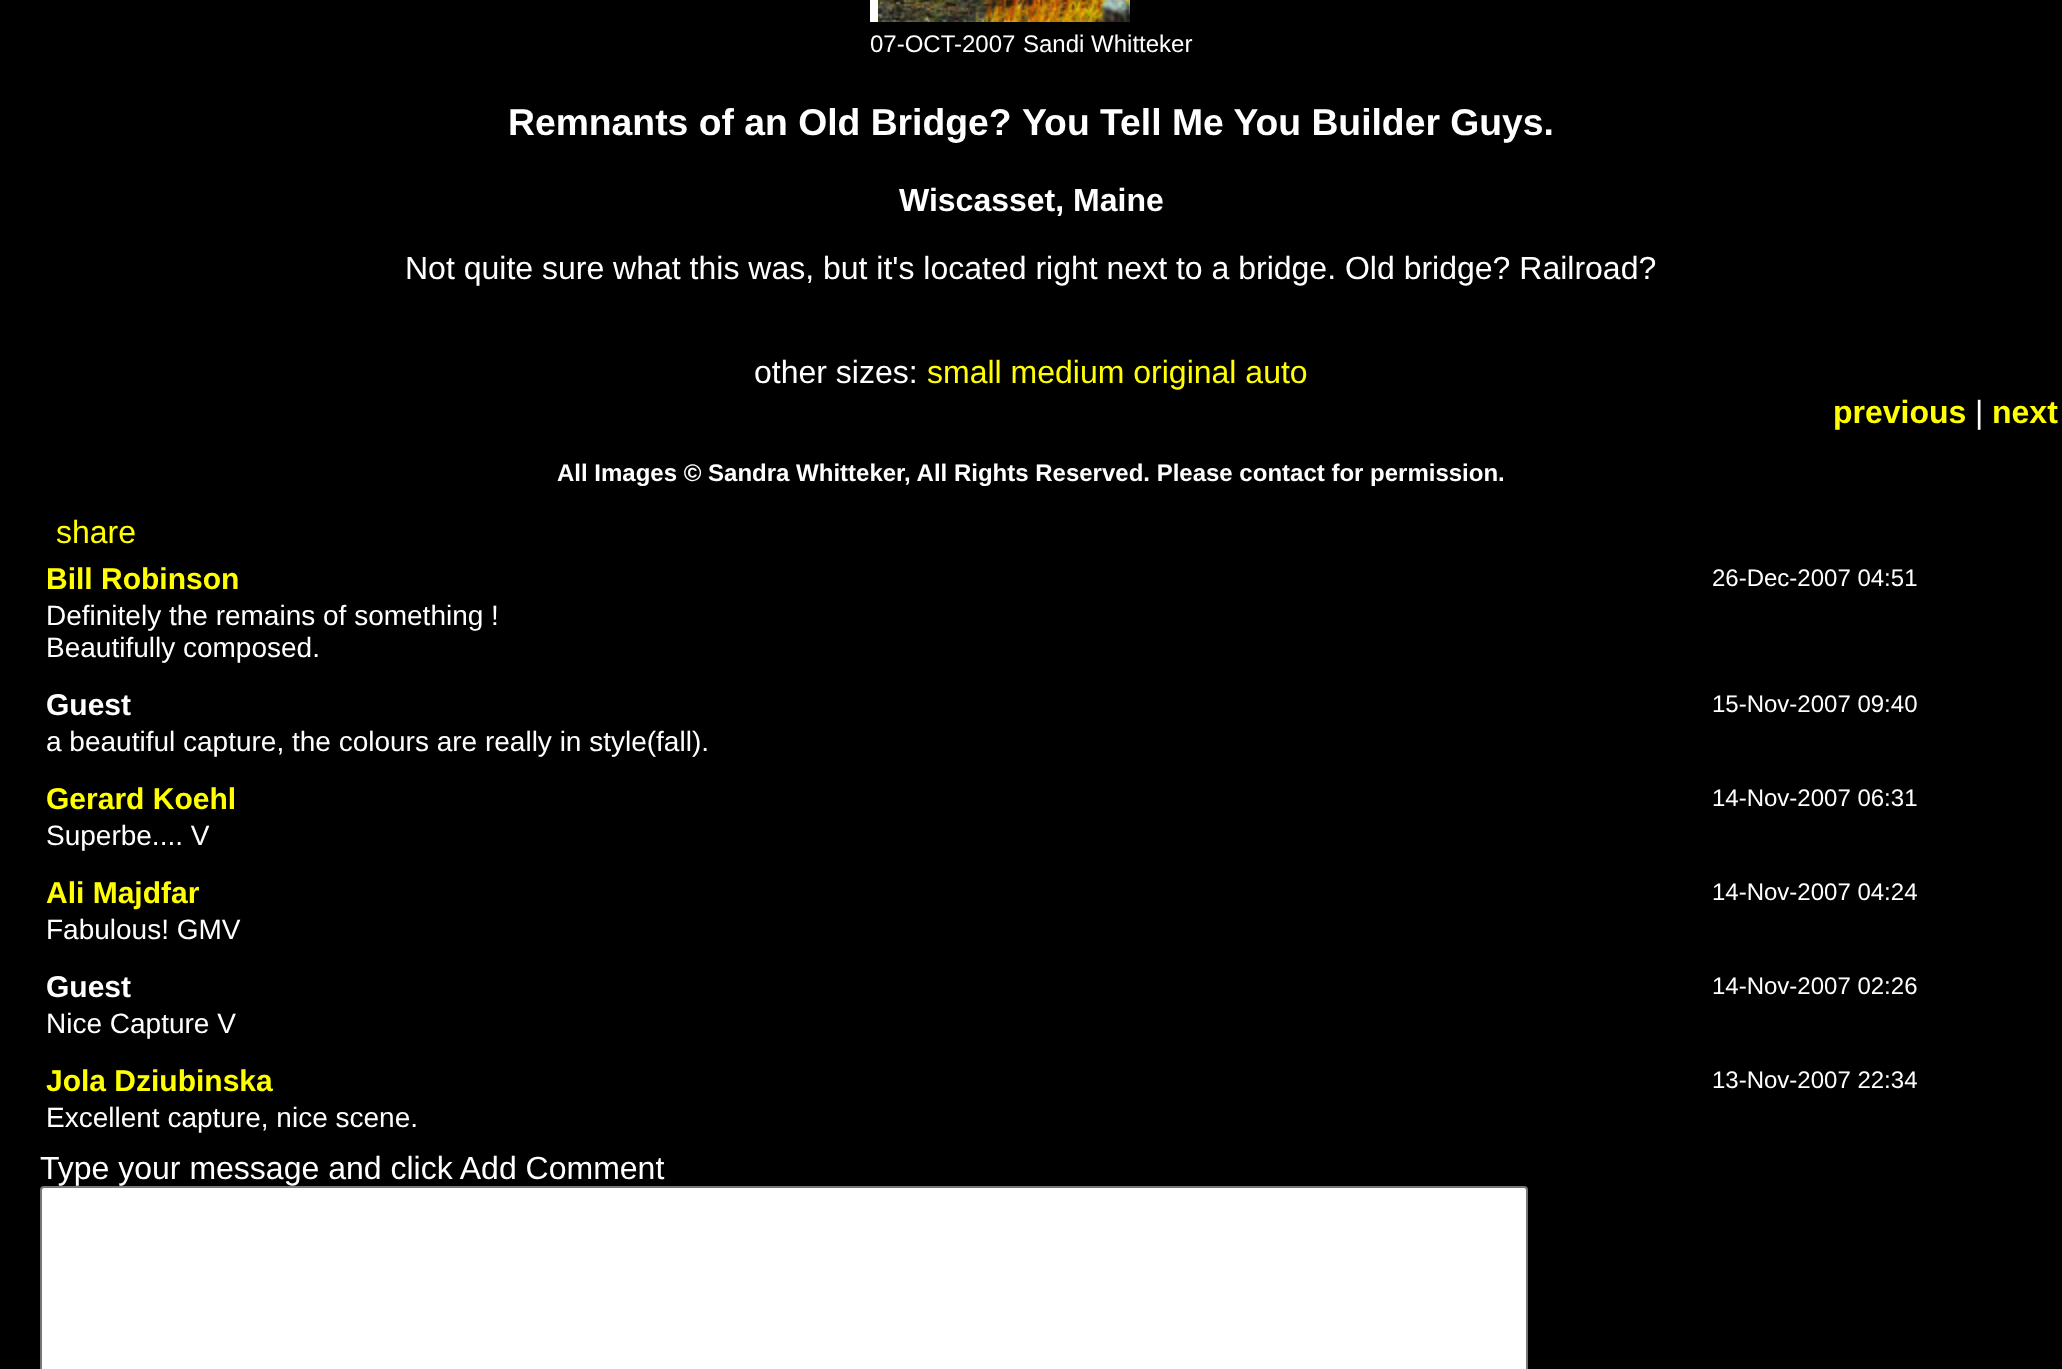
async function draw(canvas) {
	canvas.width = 2062;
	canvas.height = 1369;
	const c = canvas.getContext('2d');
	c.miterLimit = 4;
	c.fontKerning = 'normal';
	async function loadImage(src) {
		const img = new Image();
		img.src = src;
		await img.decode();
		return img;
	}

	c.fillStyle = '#000';
	c.fillRect(0, 0, 2062, 1369);
	c.save();
	c.beginPath();
	c.rect(870, 0, 260, 22);
	c.clip();
	c.strokeStyle = '#fff';
	c.lineWidth = 8;
	c.strokeRect(874, -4, 268, 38);
	c.restore();
	c.drawImage(await loadImage('img1.png'), 878, 0, 252, 22);
	c.font = '24px Liberation Sans';
	c.fillStyle = '#fff';
	c.fillText('07-OCT-2007', 870, 52);
	c.fillText('Sandi Whitteker', 1023, 52);
	c.font = 'bold 37.3px Liberation Sans';
	c.fillText('Remnants of an Old Bridge?', 508, 135);
	c.fillText('You Tell Me You Builder Guys.', 1022, 135);
	c.font = 'bold 32px Liberation Sans';
	c.fillText('Wiscasset, Maine', 899, 211);
	c.font = '32px Liberation Sans';
	c.fillText('Not quite sure what this was, but it\'s located right next to a bridge. Old bridge? Railroad?', 405, 279);
	c.fillText('other sizes:', 754, 383);
	c.fillStyle = '#ff0';
	c.fillText('small medium original auto', 927, 383);
	c.font = 'bold 32px Liberation Sans';
	c.fillText('previous', 1833, 423);
	c.font = '32px Liberation Sans';
	c.fillStyle = '#fff';
	c.fillText('|', 1975, 423);
	c.font = 'bold 32px Liberation Sans';
	c.fillStyle = '#ff0';
	c.fillText('next', 1992, 423);
	c.font = 'bold 24px Liberation Sans';
	c.fillStyle = '#fff';
	c.fillText('All Images © Sandra Whitteker, All Rights Reserved. Please contact for permission.', 557, 481);
	c.font = '32px Liberation Sans';
	c.fillStyle = '#ff0';
	c.fillText('share', 56, 543);
	c.font = 'bold 30px Liberation Sans';
	c.fillText('Bill Robinson', 46, 589);
	c.font = '24px Liberation Sans';
	c.fillStyle = '#fff';
	c.fillText('26-Dec-2007 04:51', 1712, 586);
	c.font = '28px Liberation Sans';
	c.fillText('Definitely the remains of something !', 46, 625);
	c.fillText('Beautifully composed.', 46, 657);
	c.font = 'bold 30px Liberation Sans';
	c.fillText('Guest', 46, 715);
	c.font = '24px Liberation Sans';
	c.fillText('15-Nov-2007 09:40', 1712, 712);
	c.font = '28px Liberation Sans';
	c.fillText('a beautiful capture, the colours are really in style(fall).', 46, 751);
	c.font = 'bold 30px Liberation Sans';
	c.fillStyle = '#ff0';
	c.fillText('Gerard Koehl', 46, 809);
	c.font = '24px Liberation Sans';
	c.fillStyle = '#fff';
	c.fillText('14-Nov-2007 06:31', 1712, 806);
	c.font = '28px Liberation Sans';
	c.fillText('Superbe.... V', 46, 845);
	c.font = 'bold 30px Liberation Sans';
	c.fillStyle = '#ff0';
	c.fillText('Ali Majdfar', 46, 903);
	c.font = '24px Liberation Sans';
	c.fillStyle = '#fff';
	c.fillText('14-Nov-2007 04:24', 1712, 900);
	c.font = '28px Liberation Sans';
	c.fillText('Fabulous! GMV', 46, 939);
	c.font = 'bold 30px Liberation Sans';
	c.fillText('Guest', 46, 997);
	c.font = '24px Liberation Sans';
	c.fillText('14-Nov-2007 02:26', 1712, 994);
	c.font = '28px Liberation Sans';
	c.fillText('Nice Capture V', 46, 1033);
	c.font = 'bold 30px Liberation Sans';
	c.fillStyle = '#ff0';
	c.fillText('Jola Dziubinska', 46, 1091);
	c.font = '24px Liberation Sans';
	c.fillStyle = '#fff';
	c.fillText('13-Nov-2007 22:34', 1712, 1088);
	c.font = '28px Liberation Sans';
	c.fillText('Excellent capture, nice scene.', 46, 1127);
	c.font = '32px Liberation Sans';
	c.fillText('Type your message and click Add Comment', 40, 1179);
	c.beginPath();
	c.roundRect(41, 1187, 1486, 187, 3);
	c.fill();
	c.strokeStyle = '#767676';
	c.lineWidth = 2;
	c.stroke();
}

draw(document.querySelector('canvas'));
